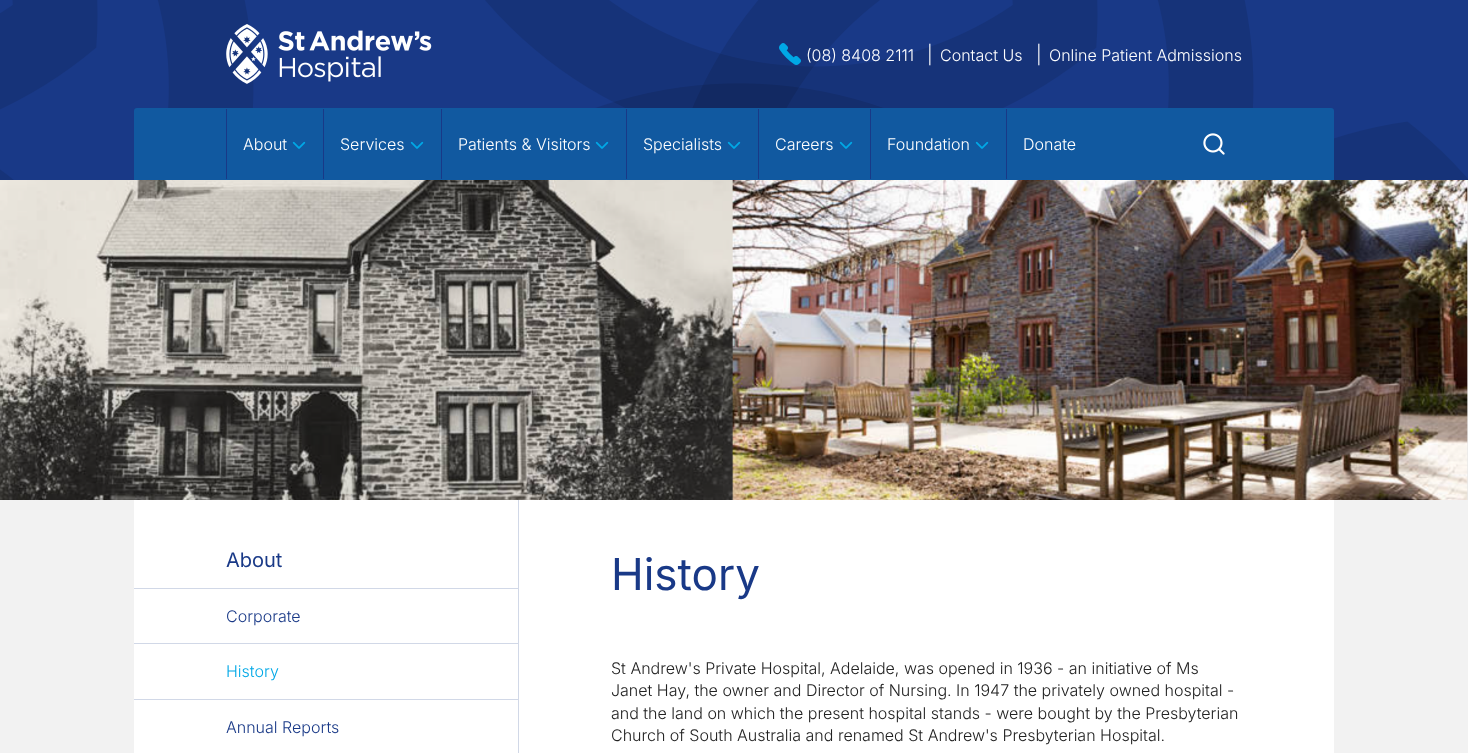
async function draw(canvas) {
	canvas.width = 1468;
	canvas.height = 753;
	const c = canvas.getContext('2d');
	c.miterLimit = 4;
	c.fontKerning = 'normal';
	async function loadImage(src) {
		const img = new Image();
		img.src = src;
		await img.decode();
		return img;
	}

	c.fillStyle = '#f2f2f2';
	c.fillRect(0, 0, 1468, 753);
	c.fillStyle = '#193987';
	c.fillRect(0, 0, 1468, 180);
	c.drawImage(await loadImage('img1.png'), 0, 0, 1468, 180);
	c.drawImage(await loadImage('img2.png'), 226, 24, 206, 60);
	c.drawImage(await loadImage('img3.png'), 779, 43, 22, 22);
	c.font = '300 16px Inter';
	c.fillStyle = '#fff';
	c.fillText('(08) 8408 2111', 806, 61);
	c.font = '300 18px Inter';
	c.fillText('|', 927, 61);
	c.font = '300 16px Inter';
	c.fillText('Contact Us', 940, 61);
	c.font = '300 18px Inter';
	c.fillText('|', 1036, 61);
	c.font = '300 16px Inter';
	c.fillText('Online Patient Admissions', 1049, 61);
	c.fillStyle = '#1159a0';
	c.beginPath();
	c.roundRect(134, 108, 1200, 72, [3, 3, 0, 0]);
	c.fill();
	c.fillStyle = '#193987';
	c.fillRect(226, 109, 1, 70);
	c.fillStyle = '#fff';
	c.fillText('About', 243, 150);
	c.drawImage(await loadImage('img4.png'), 292, 141, 14, 8);
	c.fillStyle = '#193987';
	c.fillRect(323, 109, 1, 70);
	c.fillStyle = '#fff';
	c.fillText('Services', 340, 150);
	c.drawImage(await loadImage('img4.png'), 410, 141, 14, 8);
	c.fillStyle = '#193987';
	c.fillRect(441, 109, 1, 70);
	c.fillStyle = '#fff';
	c.fillText('Patients & Visitors', 458, 150);
	c.drawImage(await loadImage('img4.png'), 595, 141, 14, 8);
	c.fillStyle = '#193987';
	c.fillRect(626, 109, 1, 70);
	c.fillStyle = '#fff';
	c.fillText('Specialists', 643, 150);
	c.drawImage(await loadImage('img4.png'), 727, 141, 14, 8);
	c.fillStyle = '#193987';
	c.fillRect(758, 109, 1, 70);
	c.fillStyle = '#fff';
	c.fillText('Careers', 775, 150);
	c.drawImage(await loadImage('img4.png'), 839, 141, 14, 8);
	c.fillStyle = '#193987';
	c.fillRect(870, 109, 1, 70);
	c.fillStyle = '#fff';
	c.fillText('Foundation', 887, 150);
	c.drawImage(await loadImage('img4.png'), 975, 141, 14, 8);
	c.fillStyle = '#193987';
	c.fillRect(1006, 109, 1, 70);
	c.fillStyle = '#fff';
	c.fillText('Donate', 1023, 150);
	c.drawImage(await loadImage('img5.png'), 1203, 133, 22, 22);
	c.drawImage(await loadImage('img6.png'), 0, 180, 1468, 320);
	c.fillRect(134, 500, 1200, 253);
	c.fillStyle = '#d1d8e7';
	c.fillRect(518, 500, 1, 253);
	c.font = '20px Inter';
	c.fillStyle = '#193987';
	c.fillText('About', 226, 567);
	c.fillStyle = '#d1d8e7';
	c.fillRect(134, 588, 384, 1);
	c.font = '300 16px Inter';
	c.fillStyle = '#193987';
	c.fillText('Corporate', 226, 622);
	c.fillStyle = '#d1d8e7';
	c.fillRect(134, 643, 384, 1);
	c.fillStyle = '#00a8e6';
	c.fillText('History', 226, 677);
	c.fillStyle = '#d1d8e7';
	c.fillRect(134, 699, 384, 1);
	c.fillStyle = '#193987';
	c.fillText('Annual Reports', 226, 733);
	c.font = '44px Inter';
	c.fillText('History', 611, 590);
	c.font = '300 16px Inter';
	c.fillStyle = '#222';
	for (const [text, x, y] of [
		['St Andrew\'s Private Hospital, Adelaide, was opened in 1936 - an initiative of Ms', 611, 674],
		['Janet Hay, the owner and Director of Nursing. In 1947 the privately owned hospital -', 611, 696],
		['and the land on which the present hospital stands - were bought by the Presbyterian', 611, 719],
		['Church of South Australia and renamed St Andrew\'s Presbyterian Hospital.', 611, 741],
	]) {
		c.fillText(text, x, y);
	}
}

draw(document.querySelector('canvas'));
